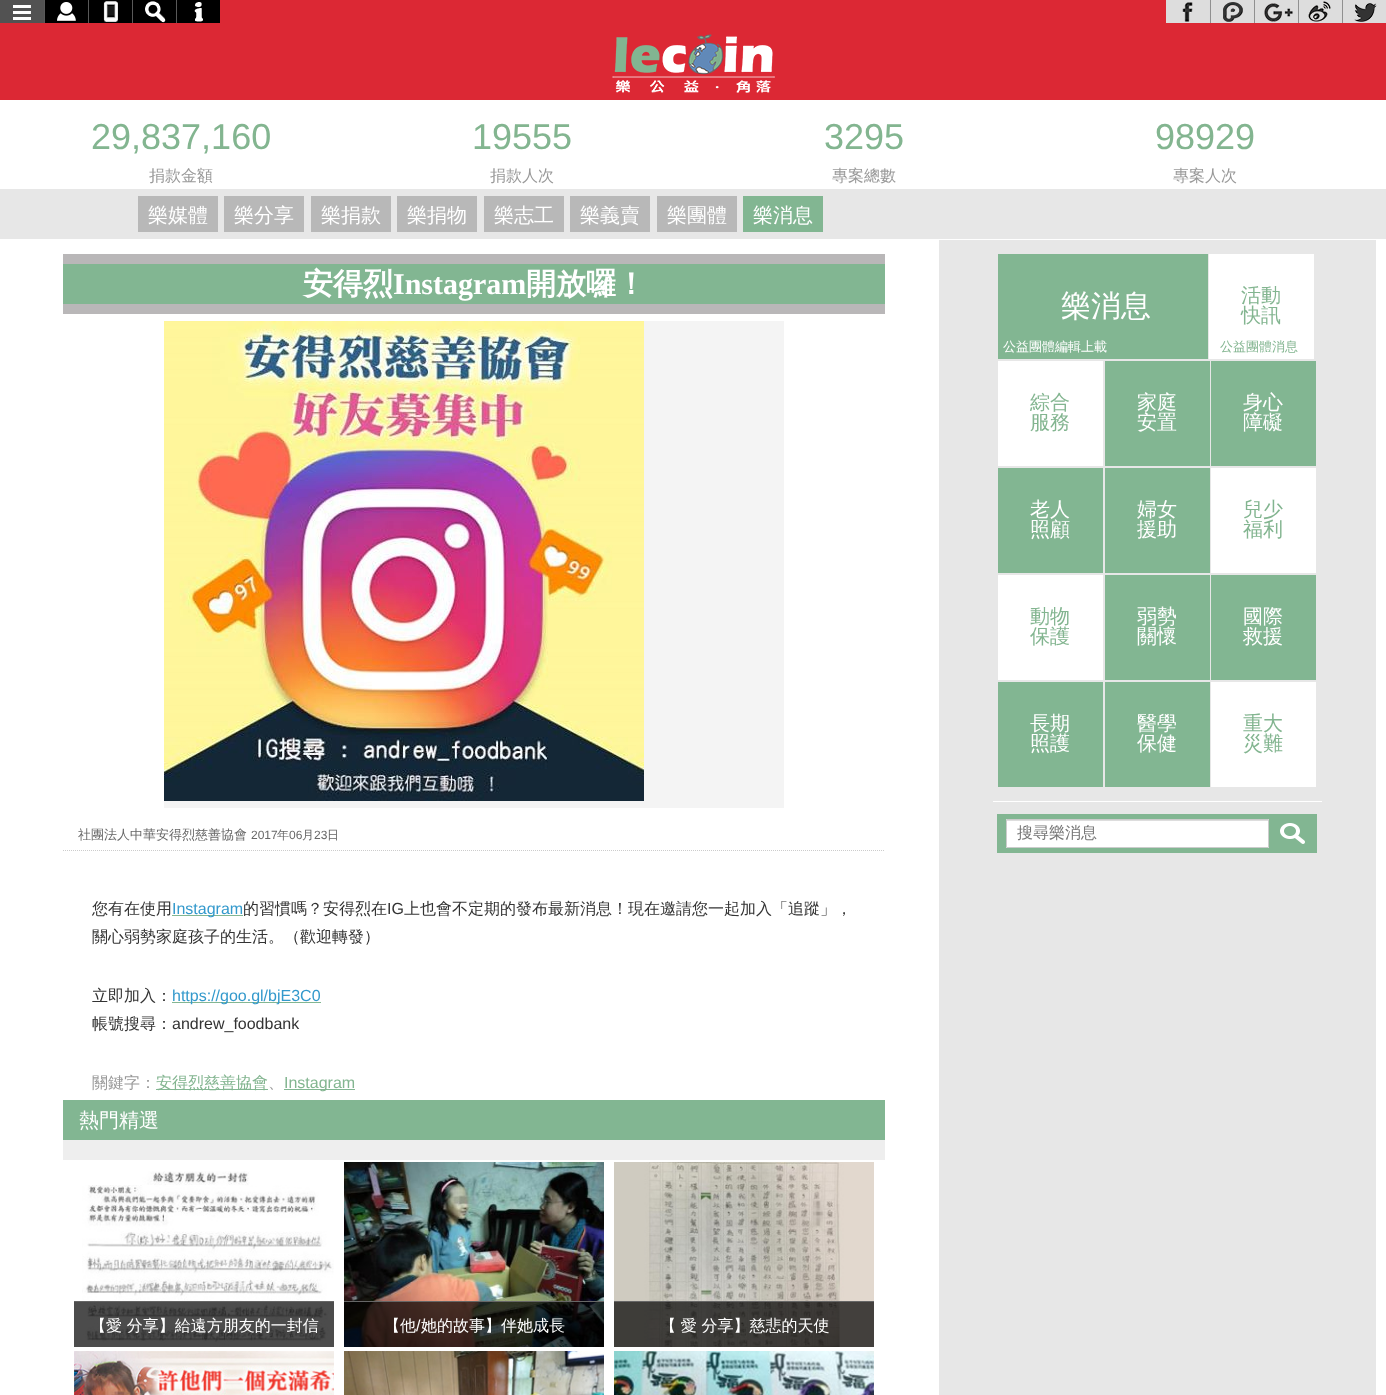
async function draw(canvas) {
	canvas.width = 1386;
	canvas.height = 1395;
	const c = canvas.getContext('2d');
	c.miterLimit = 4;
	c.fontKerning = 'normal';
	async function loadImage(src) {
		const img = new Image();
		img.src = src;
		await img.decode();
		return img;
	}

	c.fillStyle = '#fff';
	c.fillRect(0, 0, 1386, 1395);
	c.fillStyle = '#dc2834';
	c.fillRect(0, 0, 1386, 100);
	c.drawImage(await loadImage('img1.png'), 612, 34, 163, 59);
	c.fillStyle = '#525252';
	c.fillRect(0, 0, 44, 23);
	c.drawImage(await loadImage('img2.png'), 13, 5, 18, 15);
	c.fillStyle = '#000';
	c.fillRect(44, 0, 176, 23);
	c.drawImage(await loadImage('img3.png'), 44, 0, 32, 23);
	c.drawImage(await loadImage('img4.png'), 88, 0, 30, 23);
	c.drawImage(await loadImage('img5.png'), 132, 0, 34, 23);
	c.drawImage(await loadImage('img6.png'), 176, 0, 27, 23);
	c.drawImage(await loadImage('img7.png'), 1166, 0, 44, 23);
	c.drawImage(await loadImage('img8.png'), 1210, 0, 44, 23);
	c.drawImage(await loadImage('img9.png'), 1254, 0, 44, 23);
	c.drawImage(await loadImage('img10.png'), 1298, 0, 44, 23);
	c.drawImage(await loadImage('img11.png'), 1342, 0, 44, 23);
	c.font = '36px Liberation Sans';
	c.fillStyle = '#83b590';
	c.fillText('29,837,160', 91, 149);
	c.font = '500 16px WenQuanYi Zen Hei';
	c.fillStyle = '#999';
	c.fillText('捐款金額', 149, 181);
	c.font = '36px Liberation Sans';
	c.fillStyle = '#83b590';
	c.fillText('19555', 472, 149);
	c.font = '500 16px WenQuanYi Zen Hei';
	c.fillStyle = '#999';
	c.fillText('捐款人次', 490, 181);
	c.font = '36px Liberation Sans';
	c.fillStyle = '#83b590';
	c.fillText('3295', 824, 149);
	c.font = '500 16px WenQuanYi Zen Hei';
	c.fillStyle = '#999';
	c.fillText('專案總數', 832, 181);
	c.font = '36px Liberation Sans';
	c.fillStyle = '#83b590';
	c.fillText('98929', 1155, 149);
	c.font = '500 16px WenQuanYi Zen Hei';
	c.fillStyle = '#999';
	c.fillText('專案人次', 1173, 181);
	c.fillStyle = '#e7e7e7';
	c.fillRect(0, 189, 1386, 50);
	c.fillStyle = '#b8b8b8';
	c.fillRect(138, 196, 80, 36);
	c.font = '500 20px WenQuanYi Zen Hei';
	c.fillStyle = '#fff';
	c.fillText('樂媒體', 148, 222);
	c.fillStyle = '#b8b8b8';
	c.fillRect(224, 196, 80, 36);
	c.fillStyle = '#fff';
	c.fillText('樂分享', 234, 222);
	c.fillStyle = '#b8b8b8';
	c.fillRect(311, 196, 80, 36);
	c.fillStyle = '#fff';
	c.fillText('樂捐款', 321, 222);
	c.fillStyle = '#b8b8b8';
	c.fillRect(397, 196, 80, 36);
	c.fillStyle = '#fff';
	c.fillText('樂捐物', 407, 222);
	c.fillStyle = '#b8b8b8';
	c.fillRect(484, 196, 80, 36);
	c.fillStyle = '#fff';
	c.fillText('樂志工', 494, 222);
	c.fillStyle = '#b8b8b8';
	c.fillRect(570, 196, 80, 36);
	c.fillStyle = '#fff';
	c.fillText('樂義賣', 580, 222);
	c.fillStyle = '#b8b8b8';
	c.fillRect(657, 196, 80, 36);
	c.fillStyle = '#fff';
	c.fillText('樂團體', 667, 222);
	c.fillStyle = '#82b692';
	c.fillRect(743, 196, 80, 36);
	c.fillStyle = '#fff';
	c.fillText('樂消息', 753, 222);
	for (const [x, y, w, h, color] of [
		[939, 240, 437, 1155, '#e7e7e7'],
		[63, 254, 822, 60, '#b9b7b8'],
		[63, 264, 822, 40, '#82b692'],
	]) {
		c.fillStyle = color;
		c.fillRect(x, y, w, h);
	}
	c.font = 'bold 30px WenQuanYi Zen Hei';
	c.fillStyle = '#fff';
	c.fillText('安得烈', 303, 294);
	c.font = 'bold 30px Liberation Serif';
	c.fillText('Instagram', 393, 294);
	c.font = 'bold 30px WenQuanYi Zen Hei';
	c.fillText('開放囉！', 526, 294);
	c.fillStyle = '#f4f4f4';
	c.fillRect(164, 321, 620, 487);
	c.drawImage(await loadImage('img12.png'), 164, 321, 480, 480);
	c.beginPath();
	c.moveTo(63, 850.5);
	c.lineTo(885, 850.5);
	c.strokeStyle = '#ccc';
	c.setLineDash([1, 1]);
	c.stroke();
	c.font = '500 13px WenQuanYi Zen Hei';
	c.fillStyle = '#666';
	c.fillText('社團法人中華安得烈慈善協會', 78, 839);
	c.font = '12px Liberation Sans';
	c.fillText('2017', 251, 839);
	c.font = '500 12px WenQuanYi Zen Hei';
	c.fillText('年', 277, 839);
	c.font = '12px Liberation Sans';
	c.fillText('06', 289, 839);
	c.font = '500 12px WenQuanYi Zen Hei';
	c.fillText('月', 302, 839);
	c.font = '12px Liberation Sans';
	c.fillText('23', 314, 839);
	c.font = '500 12px WenQuanYi Zen Hei';
	c.fillText('日', 327, 839);
	c.font = '500 16px WenQuanYi Zen Hei';
	c.fillStyle = '#333';
	c.fillText('您有在使用', 92, 914);
	c.fillStyle = '#82b692';
	c.fillRect(172, 915, 71, 1);
	c.font = '16px Liberation Sans';
	c.fillStyle = '#39c';
	c.fillText('Instagram', 172, 914);
	c.font = '500 16px WenQuanYi Zen Hei';
	c.fillStyle = '#333';
	c.fillText('的習慣嗎？安得烈在', 243, 914);
	c.font = '16px Liberation Sans';
	c.fillText('IG', 387, 914);
	c.font = '500 16px WenQuanYi Zen Hei';
	for (const [text, x, y] of [
		['上也會不定期的發布最新消息！現在邀請您一起加入「追蹤」，', 404, 914],
		['關心弱勢家庭孩子的生活。（歡迎轉發）', 92, 942],
		['立即加入：', 92, 1001],
	]) {
		c.fillText(text, x, y);
	}
	c.fillStyle = '#82b692';
	c.fillRect(172, 1002, 149, 1);
	c.font = '16px Liberation Sans';
	c.fillStyle = '#39c';
	c.fillText('https://goo.gl/bjE3C0', 172, 1001);
	c.font = '500 16px WenQuanYi Zen Hei';
	c.fillStyle = '#333';
	c.fillText('帳號搜尋：', 92, 1029);
	c.font = '16px Liberation Sans';
	c.fillText('andrew_foodbank', 172, 1029);
	c.font = '500 16px WenQuanYi Zen Hei';
	c.fillStyle = '#999';
	c.fillText('關鍵字：', 92, 1088);
	c.fillStyle = '#82b692';
	c.fillRect(156, 1089, 112, 1);
	c.fillStyle = '#83b590';
	c.fillText('安得烈慈善協會', 156, 1088);
	c.fillStyle = '#999';
	c.fillText('、', 268, 1088);
	c.fillStyle = '#82b692';
	c.fillRect(284, 1089, 71, 1);
	c.font = '16px Liberation Sans';
	c.fillStyle = '#83b590';
	c.fillText('Instagram', 284, 1088);
	c.fillStyle = '#82b692';
	c.fillRect(63, 1100, 822, 40);
	c.fillStyle = '#eee';
	c.fillRect(63, 1140, 822, 20);
	c.font = '500 20px WenQuanYi Zen Hei';
	c.fillStyle = '#fff';
	c.fillText('熱門精選', 79, 1127);
	c.drawImage(await loadImage('img13.png'), 82, 1171, 252, 176);
	c.fillStyle = '#000000b3';
	c.fillRect(74, 1302, 260, 45);
	c.fillStyle = '#666';
	c.fillRect(74, 1301, 260, 1);
	c.font = '500 16px WenQuanYi Zen Hei';
	c.fillStyle = '#fff';
	c.fillText('【愛 分享】給遠方朋友的一封信', 90, 1331);
	c.drawImage(await loadImage('img14.png'), 344, 1162, 260, 185);
	c.fillStyle = '#000000b3';
	c.fillRect(344, 1302, 260, 45);
	c.fillStyle = '#666';
	c.fillRect(344, 1301, 260, 1);
	c.fillStyle = '#fff';
	c.fillText('【他', 384, 1331);
	c.font = '16px Liberation Sans';
	c.fillText('/', 416, 1331);
	c.font = '500 16px WenQuanYi Zen Hei';
	c.fillText('她的故事】伴她成長', 421, 1331);
	c.drawImage(await loadImage('img15.png'), 614, 1162, 260, 185);
	c.fillStyle = '#000000b3';
	c.fillRect(614, 1302, 260, 45);
	c.fillStyle = '#666';
	c.fillRect(614, 1301, 260, 1);
	c.fillStyle = '#fff';
	c.fillText('【 愛 分享】慈悲的天使', 660, 1331);
	c.drawImage(await loadImage('img16.png'), 74, 1351, 260, 44);
	c.drawImage(await loadImage('img17.png'), 344, 1351, 260, 44);
	c.drawImage(await loadImage('img18.png'), 614, 1351, 260, 44);
	c.fillStyle = '#82b692';
	c.fillRect(998, 254, 210, 105);
	c.font = '500 30px WenQuanYi Zen Hei';
	c.fillStyle = '#fff';
	c.fillText('樂消息', 1061, 316);
	c.font = '500 13px WenQuanYi Zen Hei';
	c.fillText('公益團體編輯上載', 1003, 351);
	c.fillRect(1209, 254, 105, 105);
	c.font = '500 20px WenQuanYi Zen Hei';
	c.fillStyle = '#83b590';
	c.fillText('活動', 1241, 302);
	c.fillText('快訊', 1241, 322);
	c.font = '500 13px WenQuanYi Zen Hei';
	c.fillText('公益團體消息', 1220, 351);
	c.fillStyle = '#fff';
	c.fillRect(998, 361, 105, 105);
	c.font = '500 20px WenQuanYi Zen Hei';
	c.fillStyle = '#83b590';
	c.fillText('綜合', 1030, 409);
	c.fillText('服務', 1030, 429);
	c.fillStyle = '#82b692';
	c.fillRect(1105, 361, 105, 105);
	c.fillStyle = '#fff';
	c.fillText('家庭', 1137, 409);
	c.fillText('安置', 1137, 429);
	c.fillStyle = '#82b692';
	c.fillRect(1211, 361, 105, 105);
	c.fillStyle = '#fff';
	c.fillText('身心', 1243, 409);
	c.fillText('障礙', 1243, 429);
	c.fillStyle = '#82b692';
	c.fillRect(998, 468, 105, 105);
	c.fillStyle = '#fff';
	c.fillText('老人', 1030, 516);
	c.fillText('照顧', 1030, 536);
	c.fillStyle = '#82b692';
	c.fillRect(1105, 468, 105, 105);
	c.fillStyle = '#fff';
	c.fillText('婦女', 1137, 516);
	c.fillText('援助', 1137, 536);
	c.fillRect(1211, 468, 105, 105);
	c.fillStyle = '#83b590';
	c.fillText('兒少', 1243, 516);
	c.fillText('福利', 1243, 536);
	c.fillStyle = '#fff';
	c.fillRect(998, 575, 105, 105);
	c.fillStyle = '#83b590';
	c.fillText('動物', 1030, 623);
	c.fillText('保護', 1030, 643);
	c.fillStyle = '#82b692';
	c.fillRect(1105, 575, 105, 105);
	c.fillStyle = '#fff';
	c.fillText('弱勢', 1137, 623);
	c.fillText('關懷', 1137, 643);
	c.fillStyle = '#82b692';
	c.fillRect(1211, 575, 105, 105);
	c.fillStyle = '#fff';
	c.fillText('國際', 1243, 623);
	c.fillText('救援', 1243, 643);
	c.fillStyle = '#82b692';
	c.fillRect(998, 682, 105, 105);
	c.fillStyle = '#fff';
	c.fillText('長期', 1030, 730);
	c.fillText('照護', 1030, 750);
	c.fillStyle = '#82b692';
	c.fillRect(1105, 682, 105, 105);
	c.fillStyle = '#fff';
	c.fillText('醫學', 1137, 730);
	c.fillText('保健', 1137, 750);
	c.fillRect(1211, 682, 105, 105);
	c.fillStyle = '#83b590';
	c.fillText('重大', 1243, 730);
	c.fillText('災難', 1243, 750);
	c.fillStyle = '#fff';
	c.fillRect(993, 801, 329, 1);
	c.fillStyle = '#82b692';
	c.fillRect(997, 814, 320, 39);
	c.fillStyle = '#fff';
	c.beginPath();
	c.roundRect(1006, 819, 263, 29, 1);
	c.fill();
	c.fillStyle = '#ddd';
	c.fillRect(1007, 820, 261, 1);
	c.beginPath();
	c.roundRect(1006.5, 819.5, 262, 28, 0.5);
	c.setLineDash([]);
	c.stroke();
	c.font = '500 16px WenQuanYi Zen Hei';
	c.fillStyle = '#757575';
	c.fillText('搜尋樂消息', 1017, 838);
	c.drawImage(await loadImage('img19.png'), 1280, 823, 25, 21);
}

draw(document.querySelector('canvas'));
